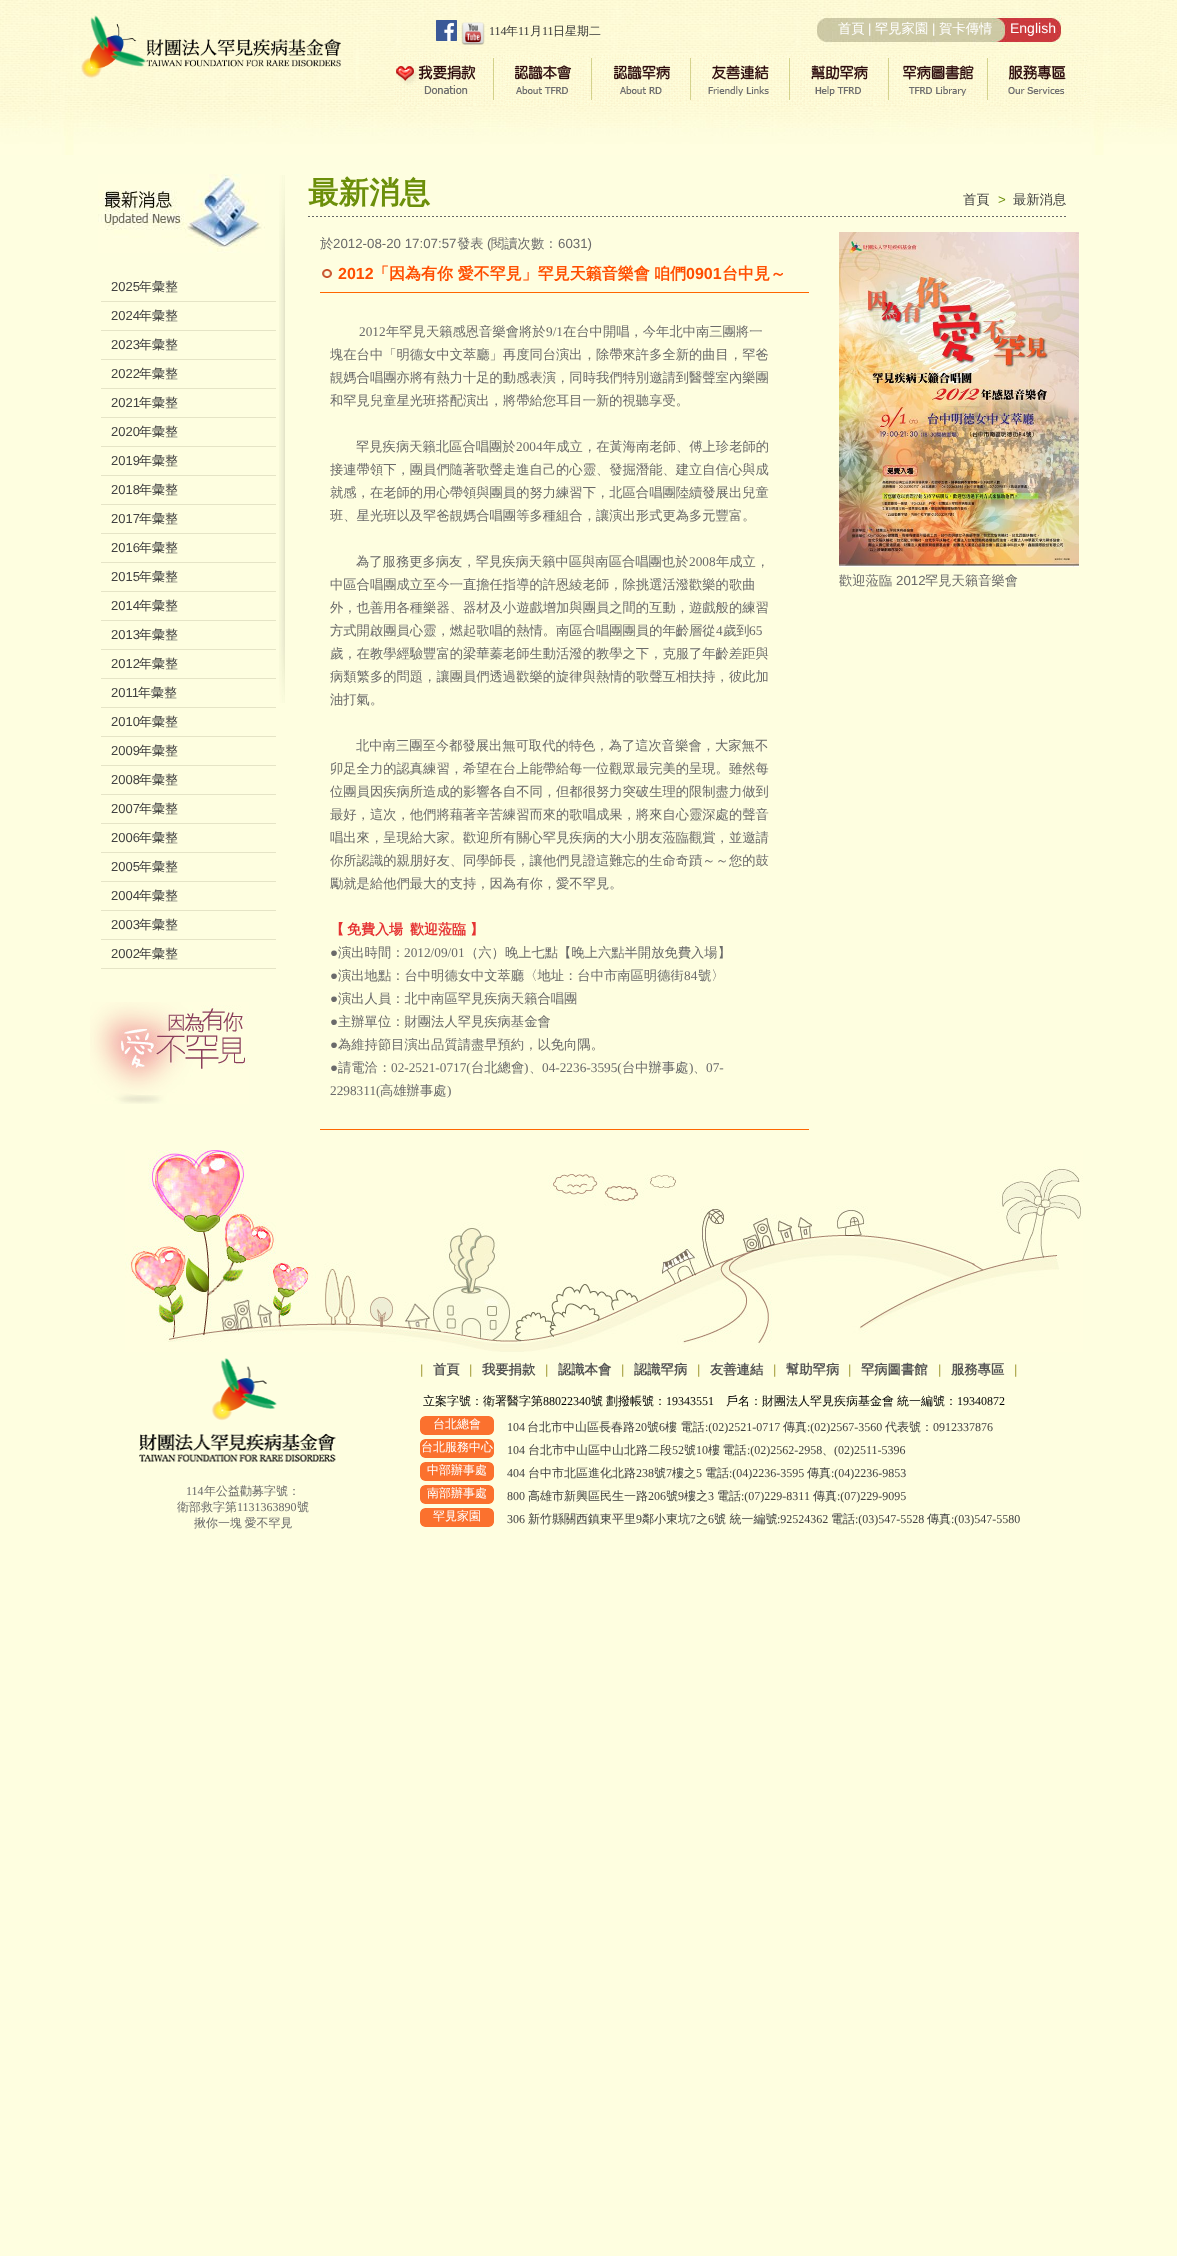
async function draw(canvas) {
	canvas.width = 1177;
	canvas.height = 2256;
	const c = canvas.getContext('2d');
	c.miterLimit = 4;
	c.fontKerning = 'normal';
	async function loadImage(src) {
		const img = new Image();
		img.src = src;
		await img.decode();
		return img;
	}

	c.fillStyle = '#fefee0';
	c.fillRect(0, 0, 1177, 2256);
	c.drawImage(await loadImage('img1.png'), 0, 0, 1177, 155);
	c.drawImage(await loadImage('img2.png'), 81, 15, 260, 63);
	c.drawImage(await loadImage('img3.png'), 436, 20, 21, 21);
	c.drawImage(await loadImage('img4.png'), 461, 22, 24, 23);
	c.font = '12px Liberation Serif';
	c.fillStyle = '#363636';
	c.fillText('114', 489, 35);
	c.font = '500 12px WenQuanYi Zen Hei';
	c.fillText('年', 506, 35);
	c.font = '12px Liberation Serif';
	c.fillText('11', 518, 35);
	c.font = '500 12px WenQuanYi Zen Hei';
	c.fillText('月', 530, 35);
	c.font = '12px Liberation Serif';
	c.fillText('11', 542, 35);
	c.font = '500 12px WenQuanYi Zen Hei';
	c.fillText('日星期二', 553, 35);
	c.drawImage(await loadImage('img5.png'), 816, 15, 246, 31);
	c.font = '500 13.3px WenQuanYi Zen Hei';
	c.fillStyle = '#fff';
	c.fillText('首頁', 838, 33);
	c.font = '13px Liberation Sans';
	c.fillText('|', 868, 33);
	c.font = '500 13.3px WenQuanYi Zen Hei';
	c.fillText('罕見家園', 875, 33);
	c.font = '13px Liberation Sans';
	c.fillText('|', 932, 33);
	c.font = '500 13.3px WenQuanYi Zen Hei';
	c.fillText('賀卡傳情', 939, 33);
	c.font = '14px Liberation Sans';
	c.fillText('English', 1010, 33);
	c.drawImage(await loadImage('img6.png'), 394, 54, 99, 52);
	c.drawImage(await loadImage('img7.png'), 493, 54, 99, 52);
	c.drawImage(await loadImage('img8.png'), 592, 54, 99, 52);
	c.drawImage(await loadImage('img9.png'), 691, 54, 99, 52);
	c.drawImage(await loadImage('img10.png'), 790, 54, 99, 52);
	c.drawImage(await loadImage('img11.png'), 889, 54, 99, 52);
	c.drawImage(await loadImage('img12.png'), 988, 54, 99, 52);
	c.drawImage(await loadImage('img13.png'), 279, 175, 6, 528);
	c.drawImage(await loadImage('img14.png'), 98, 174, 167, 79);
	c.fillStyle = '#e5e4c6';
	c.fillRect(101, 301, 175, 1);
	c.font = '13px Liberation Sans';
	c.fillStyle = '#414141';
	c.fillText('2025', 111, 291);
	c.font = '500 13px WenQuanYi Zen Hei';
	c.fillText('年彙整', 139, 291);
	c.fillStyle = '#e5e4c6';
	c.fillRect(101, 330, 175, 1);
	c.font = '13px Liberation Sans';
	c.fillStyle = '#414141';
	c.fillText('2024', 111, 320);
	c.font = '500 13px WenQuanYi Zen Hei';
	c.fillText('年彙整', 139, 320);
	c.fillStyle = '#e5e4c6';
	c.fillRect(101, 359, 175, 1);
	c.font = '13px Liberation Sans';
	c.fillStyle = '#414141';
	c.fillText('2023', 111, 349);
	c.font = '500 13px WenQuanYi Zen Hei';
	c.fillText('年彙整', 139, 349);
	c.fillStyle = '#e5e4c6';
	c.fillRect(101, 388, 175, 1);
	c.font = '13px Liberation Sans';
	c.fillStyle = '#414141';
	c.fillText('2022', 111, 378);
	c.font = '500 13px WenQuanYi Zen Hei';
	c.fillText('年彙整', 139, 378);
	c.fillStyle = '#e5e4c6';
	c.fillRect(101, 417, 175, 1);
	c.font = '13px Liberation Sans';
	c.fillStyle = '#414141';
	c.fillText('2021', 111, 407);
	c.font = '500 13px WenQuanYi Zen Hei';
	c.fillText('年彙整', 139, 407);
	c.fillStyle = '#e5e4c6';
	c.fillRect(101, 446, 175, 1);
	c.font = '13px Liberation Sans';
	c.fillStyle = '#414141';
	c.fillText('2020', 111, 436);
	c.font = '500 13px WenQuanYi Zen Hei';
	c.fillText('年彙整', 139, 436);
	c.fillStyle = '#e5e4c6';
	c.fillRect(101, 475, 175, 1);
	c.font = '13px Liberation Sans';
	c.fillStyle = '#414141';
	c.fillText('2019', 111, 465);
	c.font = '500 13px WenQuanYi Zen Hei';
	c.fillText('年彙整', 139, 465);
	c.fillStyle = '#e5e4c6';
	c.fillRect(101, 504, 175, 1);
	c.font = '13px Liberation Sans';
	c.fillStyle = '#414141';
	c.fillText('2018', 111, 494);
	c.font = '500 13px WenQuanYi Zen Hei';
	c.fillText('年彙整', 139, 494);
	c.fillStyle = '#e5e4c6';
	c.fillRect(101, 533, 175, 1);
	c.font = '13px Liberation Sans';
	c.fillStyle = '#414141';
	c.fillText('2017', 111, 523);
	c.font = '500 13px WenQuanYi Zen Hei';
	c.fillText('年彙整', 139, 523);
	c.fillStyle = '#e5e4c6';
	c.fillRect(101, 562, 175, 1);
	c.font = '13px Liberation Sans';
	c.fillStyle = '#414141';
	c.fillText('2016', 111, 552);
	c.font = '500 13px WenQuanYi Zen Hei';
	c.fillText('年彙整', 139, 552);
	c.fillStyle = '#e5e4c6';
	c.fillRect(101, 591, 175, 1);
	c.font = '13px Liberation Sans';
	c.fillStyle = '#414141';
	c.fillText('2015', 111, 581);
	c.font = '500 13px WenQuanYi Zen Hei';
	c.fillText('年彙整', 139, 581);
	c.fillStyle = '#e5e4c6';
	c.fillRect(101, 620, 175, 1);
	c.font = '13px Liberation Sans';
	c.fillStyle = '#414141';
	c.fillText('2014', 111, 610);
	c.font = '500 13px WenQuanYi Zen Hei';
	c.fillText('年彙整', 139, 610);
	c.fillStyle = '#e5e4c6';
	c.fillRect(101, 649, 175, 1);
	c.font = '13px Liberation Sans';
	c.fillStyle = '#414141';
	c.fillText('2013', 111, 639);
	c.font = '500 13px WenQuanYi Zen Hei';
	c.fillText('年彙整', 139, 639);
	c.fillStyle = '#e5e4c6';
	c.fillRect(101, 678, 175, 1);
	c.font = '13px Liberation Sans';
	c.fillStyle = '#414141';
	c.fillText('2012', 111, 668);
	c.font = '500 13px WenQuanYi Zen Hei';
	c.fillText('年彙整', 139, 668);
	c.fillStyle = '#e5e4c6';
	c.fillRect(101, 707, 175, 1);
	c.font = '13px Liberation Sans';
	c.fillStyle = '#414141';
	c.fillText('2011', 111, 697);
	c.font = '500 13px WenQuanYi Zen Hei';
	c.fillText('年彙整', 138, 697);
	c.fillStyle = '#e5e4c6';
	c.fillRect(101, 736, 175, 1);
	c.font = '13px Liberation Sans';
	c.fillStyle = '#414141';
	c.fillText('2010', 111, 726);
	c.font = '500 13px WenQuanYi Zen Hei';
	c.fillText('年彙整', 139, 726);
	c.fillStyle = '#e5e4c6';
	c.fillRect(101, 765, 175, 1);
	c.font = '13px Liberation Sans';
	c.fillStyle = '#414141';
	c.fillText('2009', 111, 755);
	c.font = '500 13px WenQuanYi Zen Hei';
	c.fillText('年彙整', 139, 755);
	c.fillStyle = '#e5e4c6';
	c.fillRect(101, 794, 175, 1);
	c.font = '13px Liberation Sans';
	c.fillStyle = '#414141';
	c.fillText('2008', 111, 784);
	c.font = '500 13px WenQuanYi Zen Hei';
	c.fillText('年彙整', 139, 784);
	c.fillStyle = '#e5e4c6';
	c.fillRect(101, 823, 175, 1);
	c.font = '13px Liberation Sans';
	c.fillStyle = '#414141';
	c.fillText('2007', 111, 813);
	c.font = '500 13px WenQuanYi Zen Hei';
	c.fillText('年彙整', 139, 813);
	c.fillStyle = '#e5e4c6';
	c.fillRect(101, 852, 175, 1);
	c.font = '13px Liberation Sans';
	c.fillStyle = '#414141';
	c.fillText('2006', 111, 842);
	c.font = '500 13px WenQuanYi Zen Hei';
	c.fillText('年彙整', 139, 842);
	c.fillStyle = '#e5e4c6';
	c.fillRect(101, 881, 175, 1);
	c.font = '13px Liberation Sans';
	c.fillStyle = '#414141';
	c.fillText('2005', 111, 871);
	c.font = '500 13px WenQuanYi Zen Hei';
	c.fillText('年彙整', 139, 871);
	c.fillStyle = '#e5e4c6';
	c.fillRect(101, 910, 175, 1);
	c.font = '13px Liberation Sans';
	c.fillStyle = '#414141';
	c.fillText('2004', 111, 900);
	c.font = '500 13px WenQuanYi Zen Hei';
	c.fillText('年彙整', 139, 900);
	c.fillStyle = '#e5e4c6';
	c.fillRect(101, 939, 175, 1);
	c.font = '13px Liberation Sans';
	c.fillStyle = '#414141';
	c.fillText('2003', 111, 929);
	c.font = '500 13px WenQuanYi Zen Hei';
	c.fillText('年彙整', 139, 929);
	c.fillStyle = '#e5e4c6';
	c.fillRect(101, 968, 175, 1);
	c.font = '13px Liberation Sans';
	c.fillStyle = '#414141';
	c.fillText('2002', 111, 958);
	c.font = '500 13px WenQuanYi Zen Hei';
	c.fillText('年彙整', 139, 958);
	c.drawImage(await loadImage('img15.png'), 90, 1002, 159, 102);
	c.font = 'bold 30.5px WenQuanYi Zen Hei';
	c.fillStyle = '#6c8f0a';
	c.fillText('最新消息', 308, 203);
	c.font = '500 13.3px WenQuanYi Zen Hei';
	c.fillStyle = '#414141';
	c.fillText('首頁', 963, 204);
	c.font = '13.3px Liberation Sans';
	c.fillStyle = '#6c8f0a';
	c.fillText('>', 998, 204);
	c.font = '500 13.3px WenQuanYi Zen Hei';
	c.fillStyle = '#414141';
	c.fillText('最新消息', 1013, 204);
	c.drawImage(await loadImage('img16.png'), 308, 216, 758, 1);
	c.fillStyle = '#6a6a6a';
	c.fillText('於', 320, 248);
	c.font = '13.3px Liberation Sans';
	c.fillText('2012-08-20 17:07:57', 333, 248);
	c.font = '500 13.3px WenQuanYi Zen Hei';
	c.fillText('發表', 457, 248);
	c.font = '13.3px Liberation Sans';
	c.fillText('(', 487, 248);
	c.font = '500 13.3px WenQuanYi Zen Hei';
	c.fillText('閱讀次數：', 491, 248);
	c.font = '13.3px Liberation Sans';
	c.fillText('6031)', 558, 248);
	c.drawImage(await loadImage('img17.png'), 322, 269, 10, 9);
	c.font = 'bold 16px Liberation Sans';
	c.fillStyle = '#ff4e00';
	c.fillText('2012', 338, 279);
	c.font = 'bold 16px WenQuanYi Zen Hei';
	c.fillText('「因為有你 愛不罕見」罕見天籟音樂會', 373, 279);
	c.fillText('咱們', 654, 279);
	c.font = 'bold 16px Liberation Sans';
	c.fillText('0901', 686, 279);
	c.font = 'bold 16px WenQuanYi Zen Hei';
	c.fillText('台中見～', 722, 279);
	c.fillStyle = '#f60';
	c.fillRect(320, 292, 489, 1);
	c.font = '13.3px Liberation Serif';
	c.fillStyle = '#6a6a6a';
	c.fillText('2012', 359, 336);
	c.font = '500 13.3px WenQuanYi Zen Hei';
	c.fillText('年罕見天籟感恩音樂會將於', 386, 336);
	c.font = '13.3px Liberation Serif';
	c.fillText('9/1', 546, 336);
	c.font = '500 13.3px WenQuanYi Zen Hei';
	for (const [text, x, y] of [
		['在台中開唱，今年北中南三團將一', 563, 336],
		['塊在台中「明德女中文萃廳」再度同台演出，除帶來許多全新的曲目，罕爸', 330, 359],
		['靚媽合唱團亦將有熱力十足的動感表演，同時我們特別邀請到醫聲室內樂團', 330, 382],
		['和罕見兒童星光班搭配演出，將帶給您耳目一新的視聽享受。', 330, 405],
		['罕見疾病天籟北區合唱團於', 356, 451],
	]) {
		c.fillText(text, x, y);
	}
	c.font = '13.3px Liberation Serif';
	c.fillText('2004', 516, 451);
	c.font = '500 13.3px WenQuanYi Zen Hei';
	for (const [text, x, y] of [
		['年成立，在黃海南老師、傅上珍老師的', 543, 451],
		['接連帶領下，團員們隨著歌聲走進自己的心靈、發掘潛能、建立自信心與成', 330, 474],
		['就感，在老師的用心帶領與團員的努力練習下，北區合唱團陸續發展出兒童', 330, 497],
		['班、星光班以及罕爸靚媽合唱團等多種組合，讓演出形式更為多元豐富。', 330, 520],
		['為了服務更多病友，罕見疾病天籟中區與南區合唱團也於', 356, 566],
	]) {
		c.fillText(text, x, y);
	}
	c.font = '13.3px Liberation Serif';
	c.fillText('2008', 689, 566);
	c.font = '500 13.3px WenQuanYi Zen Hei';
	for (const [text, x, y] of [
		['年成立，', 716, 566],
		['中區合唱團成立至今一直擔任指導的許恩綾老師，除挑選活潑歡樂的歌曲', 330, 589],
		['外，也善用各種樂器、器材及小遊戲增加與團員之間的互動，遊戲般的練習', 330, 612],
		['方式開啟團員心靈，燃起歌唱的熱情。南區合唱團團員的年齡層從', 330, 635],
	]) {
		c.fillText(text, x, y);
	}
	c.font = '13.3px Liberation Serif';
	c.fillText('4', 716, 635);
	c.font = '500 13.3px WenQuanYi Zen Hei';
	c.fillText('歲到', 723, 635);
	c.font = '13.3px Liberation Serif';
	c.fillText('65', 749, 635);
	c.font = '500 13.3px WenQuanYi Zen Hei';
	for (const [text, x, y] of [
		['歲，在教學經驗豐富的梁華蓁老師生動活潑的教學之下，克服了年齡差距與', 330, 658],
		['病類繁多的問題，讓團員們透過歡樂的旋律與熱情的歌聲互相扶持，彼此加', 330, 681],
		['油打氣。', 330, 704],
		['北中南三團至今都發展出無可取代的特色，為了這次音樂會，大家無不', 356, 750],
		['卯足全力的認真練習，希望在台上能帶給每一位觀眾最完美的呈現。雖然每', 330, 773],
		['位團員因疾病所造成的影響各自不同，但都很努力突破生理的限制盡力做到', 330, 796],
		['最好，這次，他們將藉著辛苦練習而來的歌唱成果，將來自心靈深處的聲音', 330, 819],
		['唱出來，呈現給大家。歡迎所有關心罕見疾病的大小朋友蒞臨觀賞，並邀請', 330, 842],
		['你所認識的親朋好友、同學師長，讓他們見證這難忘的生命奇蹟～～您的鼓', 330, 865],
		['勵就是給他們最大的支持，因為有你，愛不罕見。', 330, 888],
	]) {
		c.fillText(text, x, y);
	}
	c.font = 'bold 14px WenQuanYi Zen Hei';
	c.fillStyle = '#e53333';
	for (const [text, x, y] of [
		['【', 330, 934],
		['免費入場', 347, 934],
		['歡迎蒞臨', 410, 934],
		['】', 470, 934],
	]) {
		c.fillText(text, x, y);
	}
	c.font = '13.3px Liberation Serif';
	c.fillStyle = '#6a6a6a';
	c.fillText('●', 330, 957);
	c.font = '500 13.3px WenQuanYi Zen Hei';
	c.fillText('演出時間：', 338, 957);
	c.font = '13.3px Liberation Serif';
	c.fillText('2012/09/01', 404, 957);
	c.font = '500 13.3px WenQuanYi Zen Hei';
	c.fillText('（六）晚上七點【晚上六點半開放免費入場】', 465, 957);
	c.font = '13.3px Liberation Serif';
	c.fillText('●', 330, 980);
	c.font = '500 13.3px WenQuanYi Zen Hei';
	c.fillText('演出地點：台中明德女中文萃廳〈地址：台中市南區明德街', 338, 980);
	c.font = '13.3px Liberation Serif';
	c.fillText('84', 684, 980);
	c.font = '500 13.3px WenQuanYi Zen Hei';
	c.fillText('號〉', 698, 980);
	c.font = '13.3px Liberation Serif';
	c.fillText('●', 330, 1003);
	c.font = '500 13.3px WenQuanYi Zen Hei';
	c.fillText('演出人員：北中南區罕見疾病天籟合唱團', 338, 1003);
	c.font = '13.3px Liberation Serif';
	c.fillText('●', 330, 1026);
	c.font = '500 13.3px WenQuanYi Zen Hei';
	c.fillText('主辦單位：財團法人罕見疾病基金會', 338, 1026);
	c.font = '13.3px Liberation Serif';
	c.fillText('●', 330, 1049);
	c.font = '500 13.3px WenQuanYi Zen Hei';
	c.fillText('為維持節目演出品質請盡早預約，以免向隅。', 338, 1049);
	c.font = '13.3px Liberation Serif';
	c.fillText('●', 330, 1072);
	c.font = '500 13.3px WenQuanYi Zen Hei';
	c.fillText('請電洽：', 338, 1072);
	c.font = '13.3px Liberation Serif';
	c.fillText('02-2521-0717(', 391, 1072);
	c.font = '500 13.3px WenQuanYi Zen Hei';
	c.fillText('台北總會', 471, 1072);
	c.font = '13.3px Liberation Serif';
	c.fillText(')', 524, 1072);
	c.font = '500 13.3px WenQuanYi Zen Hei';
	c.fillText('、', 529, 1072);
	c.font = '13.3px Liberation Serif';
	c.fillText('04-2236-3595(', 542, 1072);
	c.font = '500 13.3px WenQuanYi Zen Hei';
	c.fillText('台中辦事處', 622, 1072);
	c.font = '13.3px Liberation Serif';
	c.fillText(')', 689, 1072);
	c.font = '500 13.3px WenQuanYi Zen Hei';
	c.fillText('、', 693, 1072);
	c.font = '13.3px Liberation Serif';
	c.fillText('07-', 706, 1072);
	c.fillText('2298311(', 330, 1095);
	c.font = '500 13.3px WenQuanYi Zen Hei';
	c.fillText('高雄辦事處', 380, 1095);
	c.font = '13.3px Liberation Serif';
	c.fillText(')', 447, 1095);
	c.fillStyle = '#f60';
	c.fillRect(320, 1129, 489, 1);
	c.drawImage(await loadImage('img18.png'), 839, 232, 240, 335);
	c.font = '500 13.3px WenQuanYi Zen Hei';
	c.fillStyle = '#6a6a6a';
	c.fillText('歡迎蒞臨', 839, 585);
	c.font = '13.3px Liberation Sans';
	c.fillText('2012', 896, 585);
	c.font = '500 13.3px WenQuanYi Zen Hei';
	c.fillText('罕見天籟音樂會', 925, 585);
	c.drawImage(await loadImage('img19.png'), 125, 1150, 958, 202);
	c.drawImage(await loadImage('img20.png'), 139, 1358, 197, 104);
	c.font = '12px Liberation Serif';
	c.fillText('114', 186, 1495);
	c.font = '500 12px WenQuanYi Zen Hei';
	c.fillText('年公益勸募字號：', 204, 1495);
	c.fillText('衛部救字第', 177, 1511);
	c.font = '12px Liberation Serif';
	c.fillText('1131363890', 237, 1511);
	c.font = '500 12px WenQuanYi Zen Hei';
	c.fillText('號', 297, 1511);
	c.wordSpacing = '-1px';
	c.fillText('揪你一塊 愛不罕見', 194, 1527);
	c.wordSpacing = '0px';
	c.font = '13px Liberation Sans';
	c.fillStyle = '#a59f3d';
	c.fillText('|', 420, 1374);
	c.font = 'bold 13.3px WenQuanYi Zen Hei';
	c.fillStyle = '#535353';
	c.fillText('首頁', 433, 1374);
	c.font = '13px Liberation Sans';
	c.fillStyle = '#a59f3d';
	c.fillText('|', 469, 1374);
	c.font = 'bold 13.3px WenQuanYi Zen Hei';
	c.fillStyle = '#535353';
	c.fillText('我要捐款', 482, 1374);
	c.font = '13px Liberation Sans';
	c.fillStyle = '#a59f3d';
	c.fillText('|', 545, 1374);
	c.font = 'bold 13.3px WenQuanYi Zen Hei';
	c.fillStyle = '#535353';
	c.fillText('認識本會', 558, 1374);
	c.font = '13px Liberation Sans';
	c.fillStyle = '#a59f3d';
	c.fillText('|', 621, 1374);
	c.font = 'bold 13.3px WenQuanYi Zen Hei';
	c.fillStyle = '#535353';
	c.fillText('認識罕病', 634, 1374);
	c.font = '13px Liberation Sans';
	c.fillStyle = '#a59f3d';
	c.fillText('|', 697, 1374);
	c.font = 'bold 13.3px WenQuanYi Zen Hei';
	c.fillStyle = '#535353';
	c.fillText('友善連結', 710, 1374);
	c.font = '13px Liberation Sans';
	c.fillStyle = '#a59f3d';
	c.fillText('|', 773, 1374);
	c.font = 'bold 13.3px WenQuanYi Zen Hei';
	c.fillStyle = '#535353';
	c.fillText('幫助罕病', 786, 1374);
	c.font = '13px Liberation Sans';
	c.fillStyle = '#a59f3d';
	c.fillText('|', 848, 1374);
	c.font = 'bold 13.3px WenQuanYi Zen Hei';
	c.fillStyle = '#535353';
	c.fillText('罕病圖書館', 861, 1374);
	c.font = '13px Liberation Sans';
	c.fillStyle = '#a59f3d';
	c.fillText('|', 938, 1374);
	c.font = 'bold 13.3px WenQuanYi Zen Hei';
	c.fillStyle = '#535353';
	c.fillText('服務專區', 951, 1374);
	c.font = '13px Liberation Sans';
	c.fillStyle = '#a59f3d';
	c.fillText('|', 1014, 1374);
	c.font = '500 12px WenQuanYi Zen Hei';
	c.fillStyle = '#000';
	c.fillText('立案字號：衛署醫字第', 423, 1405);
	c.font = '12px Liberation Serif';
	c.fillText('88022340', 543, 1405);
	c.font = '500 12px WenQuanYi Zen Hei';
	c.fillText('號', 591, 1405);
	c.fillText('劃撥帳號：', 606, 1405);
	c.font = '12px Liberation Serif';
	c.fillText('19343551', 666, 1405);
	c.font = '500 12px WenQuanYi Zen Hei';
	c.fillText('戶名：財團法人罕見疾病基金會', 726, 1405);
	c.fillText('統一編號：', 897, 1405);
	c.font = '12px Liberation Serif';
	c.fillText('19340872', 957, 1405);
	c.drawImage(await loadImage('img21.png'), 420, 1416, 74, 19);
	c.font = '500 12px WenQuanYi Zen Hei';
	c.fillStyle = '#fff';
	c.fillText('台北總會', 433, 1428);
	c.font = '12px Liberation Serif';
	c.fillStyle = '#414141';
	c.fillText('104', 507, 1431);
	c.font = '500 12px WenQuanYi Zen Hei';
	c.fillText('台北市中山區長春路', 527, 1431);
	c.font = '12px Liberation Serif';
	c.fillText('20', 635, 1431);
	c.font = '500 12px WenQuanYi Zen Hei';
	c.fillText('號', 647, 1431);
	c.font = '12px Liberation Serif';
	c.fillText('6', 659, 1431);
	c.font = '500 12px WenQuanYi Zen Hei';
	c.fillText('樓 電話', 665, 1431);
	c.font = '12px Liberation Serif';
	c.fillText(':(02)2521-0717', 705, 1431);
	c.font = '500 12px WenQuanYi Zen Hei';
	c.fillText('傳真', 783, 1431);
	c.font = '12px Liberation Serif';
	c.fillText(':(02)2567-3560', 807, 1431);
	c.font = '500 12px WenQuanYi Zen Hei';
	c.fillText('代表號：', 885, 1431);
	c.font = '12px Liberation Serif';
	c.fillText('0912337876', 933, 1431);
	c.drawImage(await loadImage('img21.png'), 420, 1439, 74, 19);
	c.font = '500 12px WenQuanYi Zen Hei';
	c.fillStyle = '#fff';
	c.fillText('台北服務中心', 421, 1451);
	c.font = '12px Liberation Serif';
	c.fillStyle = '#414141';
	c.fillText('104', 507, 1454);
	c.font = '500 12px WenQuanYi Zen Hei';
	c.fillText('台北市中山區中山北路二段', 528, 1454);
	c.font = '12px Liberation Serif';
	c.fillText('52', 672, 1454);
	c.font = '500 12px WenQuanYi Zen Hei';
	c.fillText('號', 684, 1454);
	c.font = '12px Liberation Serif';
	c.fillText('10', 696, 1454);
	c.wordSpacing = '-1px';
	c.font = '500 12px WenQuanYi Zen Hei';
	c.fillText('樓 電話', 708, 1454);
	c.wordSpacing = '0px';
	c.font = '12px Liberation Serif';
	c.fillText(':(02)2562-2958', 747, 1454);
	c.font = '500 12px WenQuanYi Zen Hei';
	c.fillText('、', 822, 1454);
	c.font = '12px Liberation Serif';
	c.fillText('(02)2511-5396', 834, 1454);
	c.drawImage(await loadImage('img21.png'), 420, 1462, 74, 19);
	c.font = '500 12px WenQuanYi Zen Hei';
	c.fillStyle = '#fff';
	c.fillText('中部辦事處', 427, 1474);
	c.font = '12px Liberation Serif';
	c.fillStyle = '#414141';
	c.fillText('404', 507, 1477);
	c.font = '500 12px WenQuanYi Zen Hei';
	c.fillText('台中市北區進化北路', 528, 1477);
	c.font = '12px Liberation Serif';
	c.fillText('238', 636, 1477);
	c.font = '500 12px WenQuanYi Zen Hei';
	c.fillText('號', 654, 1477);
	c.font = '12px Liberation Serif';
	c.fillText('7', 666, 1477);
	c.font = '500 12px WenQuanYi Zen Hei';
	c.fillText('樓之', 672, 1477);
	c.font = '12px Liberation Serif';
	c.fillText('5', 696, 1477);
	c.font = '500 12px WenQuanYi Zen Hei';
	c.fillText('電話', 705, 1477);
	c.font = '12px Liberation Serif';
	c.fillText(':(04)2236-3595', 729, 1477);
	c.font = '500 12px WenQuanYi Zen Hei';
	c.fillText('傳真', 807, 1477);
	c.font = '12px Liberation Serif';
	c.fillText(':(04)2236-9853', 831, 1477);
	c.drawImage(await loadImage('img21.png'), 420, 1485, 74, 19);
	c.font = '500 12px WenQuanYi Zen Hei';
	c.fillStyle = '#fff';
	c.fillText('南部辦事處', 427, 1497);
	c.font = '12px Liberation Serif';
	c.fillStyle = '#414141';
	c.fillText('800', 507, 1500);
	c.font = '500 12px WenQuanYi Zen Hei';
	c.fillText('高雄市新興區民生一路', 528, 1500);
	c.font = '12px Liberation Serif';
	c.fillText('206', 648, 1500);
	c.font = '500 12px WenQuanYi Zen Hei';
	c.fillText('號', 666, 1500);
	c.font = '12px Liberation Serif';
	c.fillText('9', 678, 1500);
	c.font = '500 12px WenQuanYi Zen Hei';
	c.fillText('樓之', 684, 1500);
	c.font = '12px Liberation Serif';
	c.fillText('3', 708, 1500);
	c.font = '500 12px WenQuanYi Zen Hei';
	c.fillText('電話', 717, 1500);
	c.font = '12px Liberation Serif';
	c.fillText(':(07)229-8311', 741, 1500);
	c.font = '500 12px WenQuanYi Zen Hei';
	c.fillText('傳真', 813, 1500);
	c.font = '12px Liberation Serif';
	c.fillText(':(07)229-9095', 837, 1500);
	c.drawImage(await loadImage('img21.png'), 420, 1508, 74, 19);
	c.font = '500 12px WenQuanYi Zen Hei';
	c.fillStyle = '#fff';
	c.fillText('罕見家園', 433, 1520);
	c.font = '12px Liberation Serif';
	c.fillStyle = '#414141';
	c.fillText('306', 507, 1523);
	c.font = '500 12px WenQuanYi Zen Hei';
	c.fillText('新竹縣關西鎮東平里', 528, 1523);
	c.font = '12px Liberation Serif';
	c.fillText('9', 636, 1523);
	c.font = '500 12px WenQuanYi Zen Hei';
	c.fillText('鄰小東坑', 642, 1523);
	c.font = '12px Liberation Serif';
	c.fillText('7', 690, 1523);
	c.font = '500 12px WenQuanYi Zen Hei';
	c.fillText('之', 696, 1523);
	c.font = '12px Liberation Serif';
	c.fillText('6', 708, 1523);
	c.font = '500 12px WenQuanYi Zen Hei';
	c.fillText('號 統一編號', 714, 1523);
	c.font = '12px Liberation Serif';
	c.fillText(':92524362', 777, 1523);
	c.font = '500 12px WenQuanYi Zen Hei';
	c.fillText('電話', 831, 1523);
	c.font = '12px Liberation Serif';
	c.fillText(':(03)547-5528', 855, 1523);
	c.font = '500 12px WenQuanYi Zen Hei';
	c.fillText('傳真', 927, 1523);
	c.font = '12px Liberation Serif';
	c.fillText(':(03)547-5580', 951, 1523);
}

draw(document.querySelector('canvas'));
